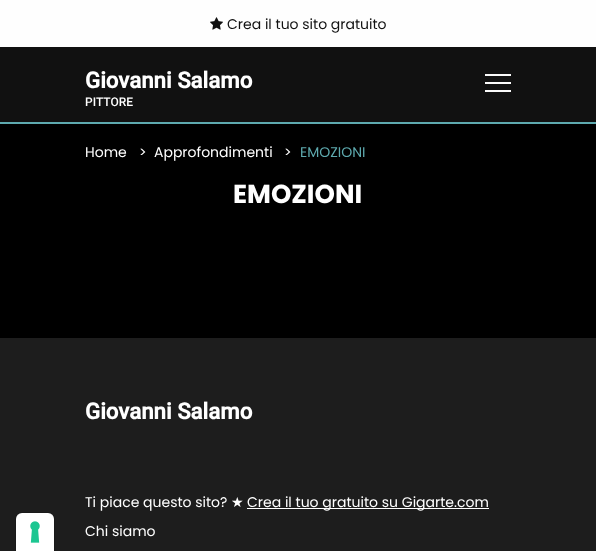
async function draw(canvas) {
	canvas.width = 596;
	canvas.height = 551;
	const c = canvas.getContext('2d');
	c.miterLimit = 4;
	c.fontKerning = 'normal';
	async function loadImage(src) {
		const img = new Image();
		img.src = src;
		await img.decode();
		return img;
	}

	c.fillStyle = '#000';
	c.fillRect(0, 0, 596, 551);
	c.fillStyle = '#1d1d1d';
	c.fillRect(0, 338, 596, 213);
	c.beginPath();
	c.moveTo(22, 512.5);
	c.lineTo(48, 512.5);
	c.bezierCurveTo(51.5, 512.5, 54.5, 515.5, 54.5, 519);
	c.lineTo(54.5, 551.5);
	c.lineTo(15.5, 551.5);
	c.lineTo(15.5, 519);
	c.bezierCurveTo(15.5, 515.5, 18.5, 512.5, 22, 512.5);
	c.closePath();
	c.strokeStyle = '#191919';
	c.stroke();
	c.fillStyle = '#fff';
	c.beginPath();
	c.roundRect(16, 513, 38, 38, [6, 6, 0, 0]);
	c.fill();
	c.drawImage(await loadImage('img1.png'), 30, 521, 10, 22);
	c.fillStyle = '#fefefe';
	c.fillRect(0, 0, 596, 47);
	c.drawImage(await loadImage('img2.png'), 210, 17, 13, 13);
	c.font = '14px Poppins';
	c.fillStyle = '#111';
	c.fillText('Crea il tuo sito gratuito', 227, 29);
	c.fillRect(0, 47, 596, 75);
	c.fillStyle = '#5eaaaf';
	c.fillRect(0, 122, 596, 2);
	c.font = 'bold 22.25px Roboto';
	c.fillStyle = '#fff';
	c.fillText('Giovanni Salamo', 85, 88);
	c.font = '500 12px Roboto';
	c.fillText('PITTORE', 85, 106);
	for (const [x, y, w, h, color] of [
		[485, 82, 26, 2, '#fafafa'],
		[485, 74, 26, 2, '#fafafa'],
		[485, 90, 26, 2, '#fafafa'],
	]) {
		c.fillStyle = color;
		c.fillRect(x, y, w, h);
	}
	c.font = '14px Poppins';
	c.fillStyle = '#fff';
	for (const [text, x, y] of [
		['Home', 85, 157],
		['>', 139, 157],
		['Approfondimenti', 154, 157],
		['>', 284, 157],
	]) {
		c.fillText(text, x, y);
	}
	c.fillStyle = '#5eaaaf';
	c.fillText('EMOZIONI', 300, 157);
	c.font = 'bold 26px Poppins';
	c.fillStyle = '#fff';
	c.fillText('EMOZIONI', 233, 203);
	c.font = 'bold 22.25px Roboto';
	c.fillText('Giovanni Salamo', 85, 419);
	c.font = '14px Poppins';
	c.fillText('Ti piace questo sito?', 85, 507);
	c.font = '14px DejaVu Sans';
	c.fillText('★', 231, 507);
	c.fillRect(247, 508, 242, 1);
	c.font = '14px Poppins';
	c.fillText('Crea il tuo gratuito su Gigarte.com', 247, 507);
	c.fillText('Chi siamo', 85, 536);
}

draw(document.querySelector('canvas'));
